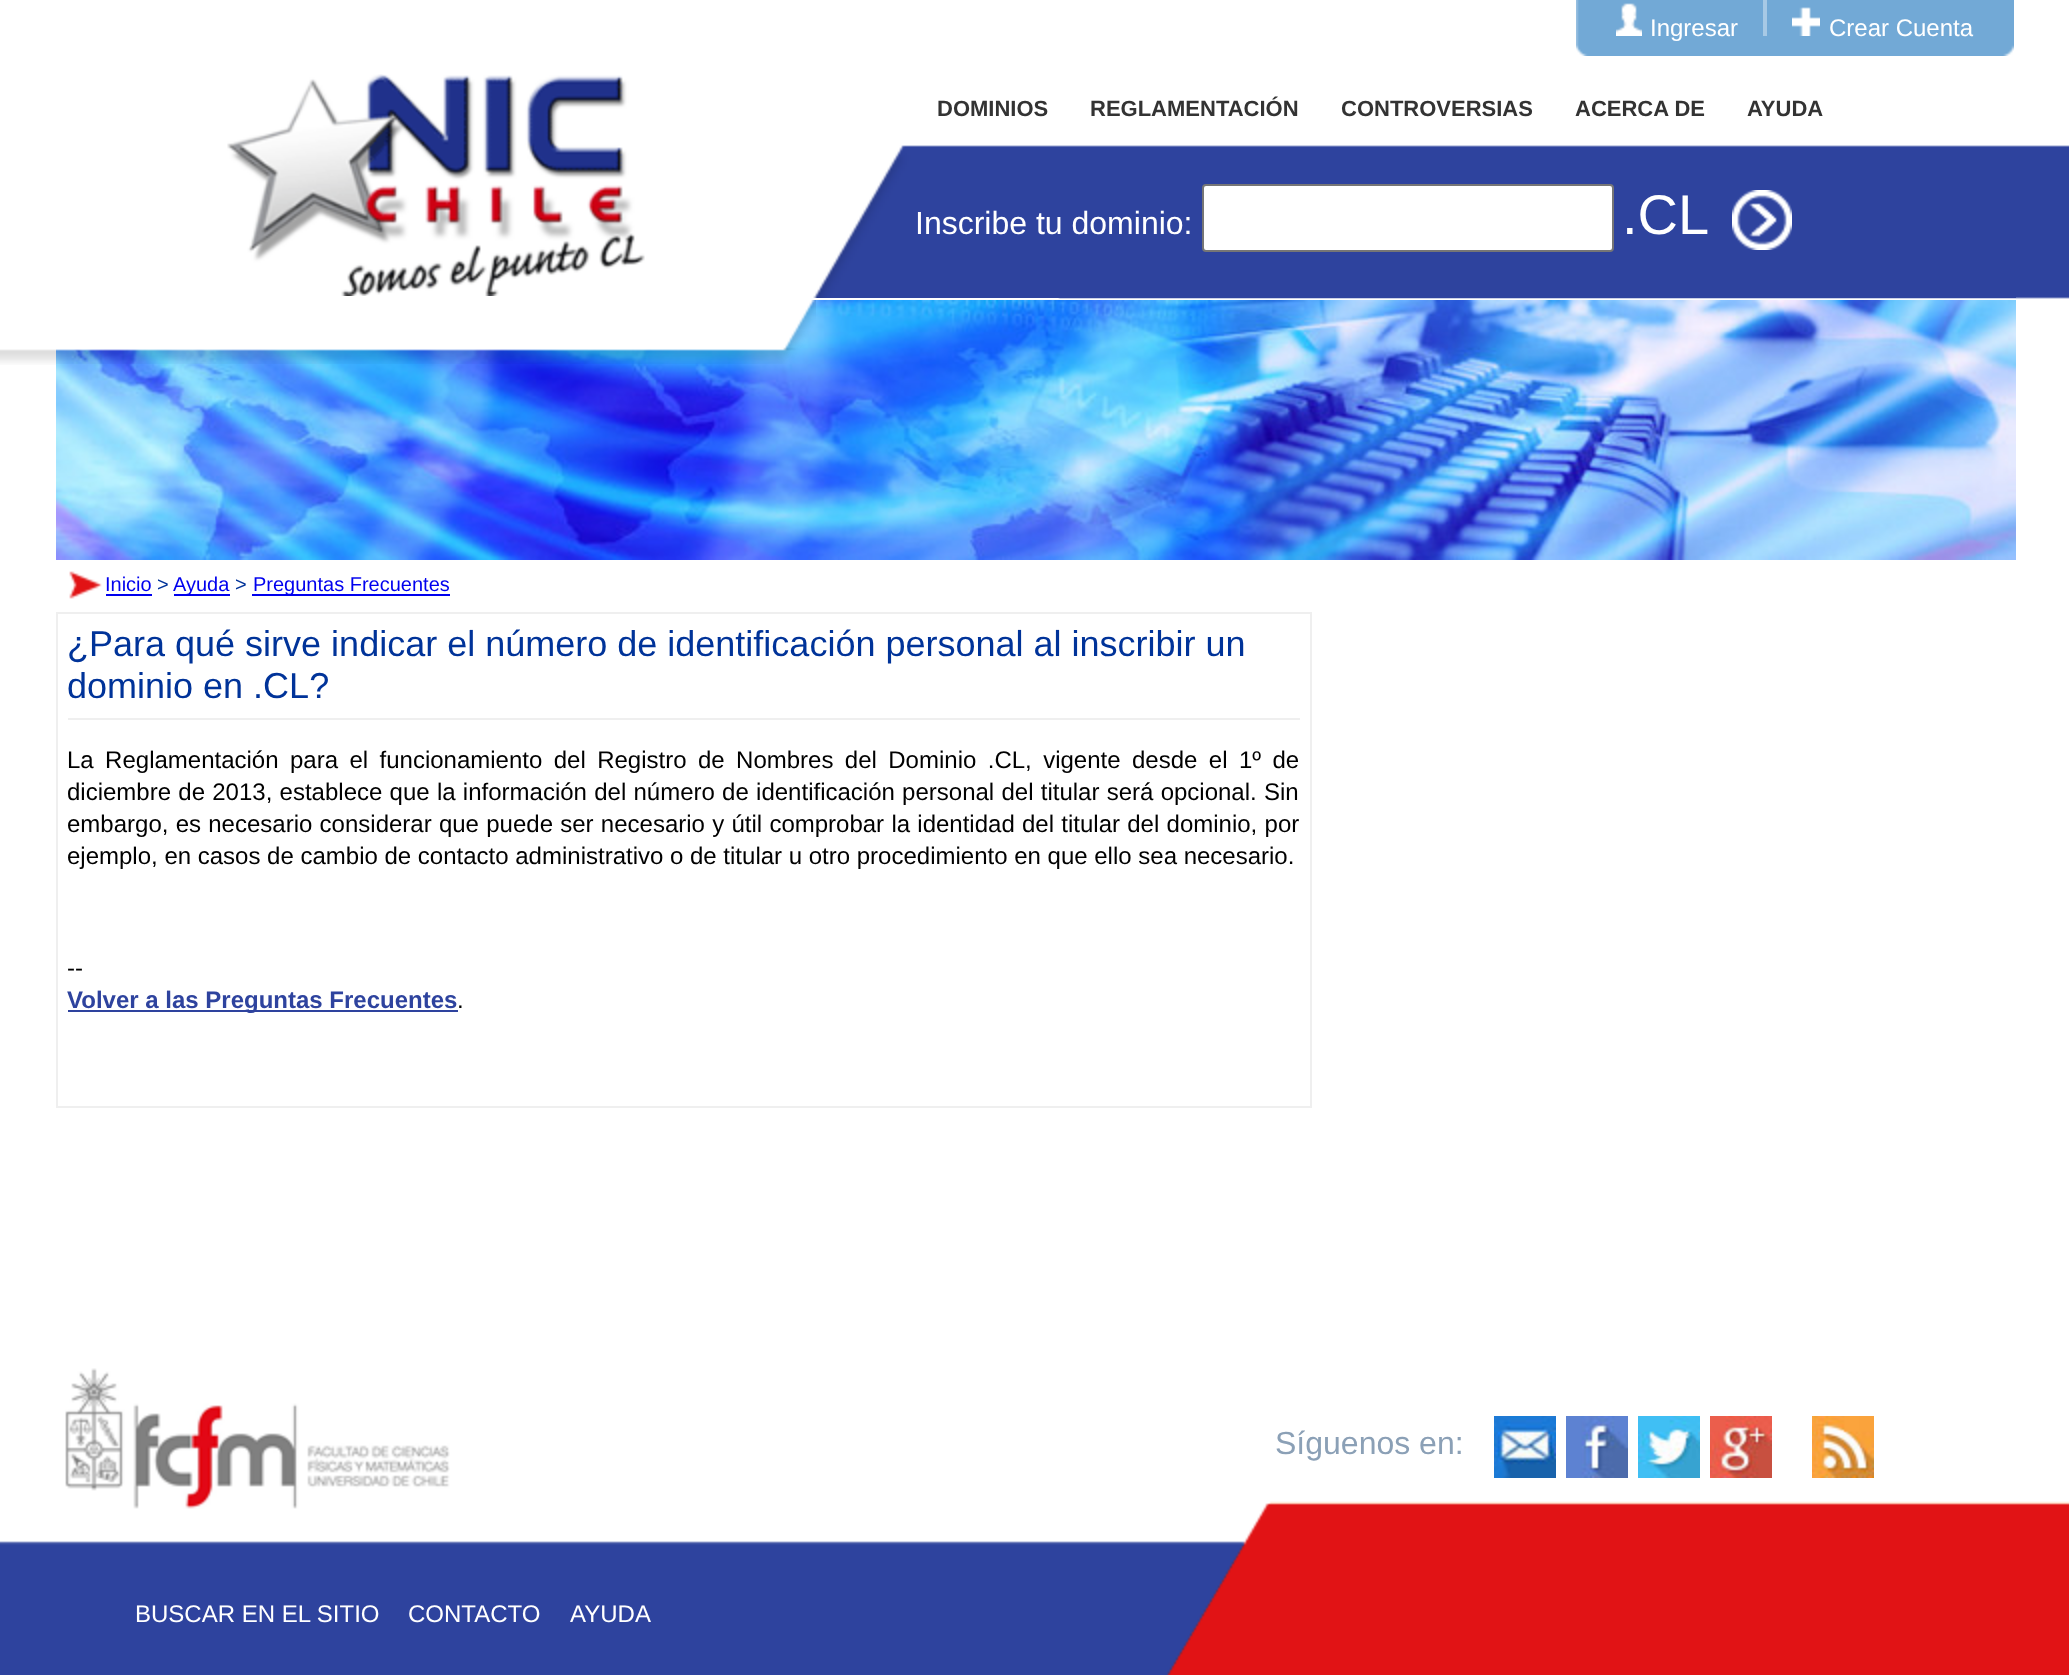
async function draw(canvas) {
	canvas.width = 2069;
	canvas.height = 1675;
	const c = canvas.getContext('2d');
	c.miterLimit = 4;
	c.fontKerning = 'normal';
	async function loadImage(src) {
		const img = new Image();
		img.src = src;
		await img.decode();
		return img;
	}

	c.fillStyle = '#fff';
	c.fillRect(0, 0, 2069, 1675);
	c.drawImage(await loadImage('img1.png'), 0, 145, 2069, 220);
	c.drawImage(await loadImage('img2.png'), 813, 145, 1203, 153);
	c.drawImage(await loadImage('img3.png'), 227, 74, 418, 222);
	c.drawImage(await loadImage('img4.png'), 1576, 0, 438, 56);
	c.drawImage(await loadImage('img5.png'), 1616, 3, 26, 33);
	c.font = '24px Liberation Sans';
	c.fillText('Ingresar', 1650, 36);
	c.fillStyle = '#a7c9e5';
	c.fillRect(1763, 0, 4, 36);
	c.drawImage(await loadImage('img6.png'), 1792, 7, 28, 29);
	c.fillStyle = '#fff';
	c.fillText('Crear Cuenta', 1829, 36);
	c.font = 'bold 22px Liberation Sans';
	c.fillStyle = '#333';
	for (const [text, x, y] of [
		['DOMINIOS', 937, 116],
		['REGLAMENTACIÓN', 1090, 116],
		['CONTROVERSIAS', 1341, 116],
		['ACERCA DE', 1575, 116],
		['AYUDA', 1747, 116],
	]) {
		c.fillText(text, x, y);
	}
	c.font = '32px Liberation Sans';
	c.fillStyle = '#fff';
	c.fillText('Inscribe tu dominio:', 915, 234);
	c.beginPath();
	c.roundRect(1203, 185, 410, 66, 3);
	c.fill();
	c.strokeStyle = '#767676';
	c.lineWidth = 2;
	c.stroke();
	c.font = '56px Liberation Sans';
	c.fillText('.CL', 1622, 234);
	c.drawImage(await loadImage('img7.png'), 1732, 190, 60, 60);
	c.drawImage(await loadImage('img8.png'), 56, 300, 1960, 260);
	c.drawImage(await loadImage('img9.png'), 56, 300, 760, 64);
	c.drawImage(await loadImage('img10.png'), 69, 571, 33, 28);
	c.font = '20px Liberation Sans';
	c.fillStyle = '#00e';
	c.fillText('Inicio', 105, 591);
	c.fillRect(106, 594, 46, 2);
	c.fillStyle = '#039';
	c.fillText('>', 157, 591);
	c.fillStyle = '#00e';
	c.fillRect(174, 594, 56, 2);
	c.fillText('Ayuda', 173, 591);
	c.fillStyle = '#039';
	c.fillText('>', 235, 591);
	c.fillStyle = '#00e';
	c.fillRect(252, 594, 198, 2);
	c.fillText('Preguntas Frecuentes', 253, 591);
	c.strokeStyle = '#efefef';
	c.strokeRect(57, 613, 1254, 494);
	c.fillStyle = '#efefef';
	c.fillRect(68, 718, 1232, 2);
	c.font = '36px Liberation Sans';
	c.fillStyle = '#039';
	c.fillText('¿Para qué sirve indicar el número de identificación personal al inscribir un', 67, 656);
	c.fillText('dominio en .CL?', 67, 698);
	c.wordSpacing = '4.75px';
	c.font = '24px Liberation Sans';
	c.fillStyle = '#000';
	c.fillText('La Reglamentación para el funcionamiento del Registro de Nombres del Dominio .CL, vigente desde el 1º de', 67, 768);
	c.wordSpacing = '0.6px';
	c.fillText('diciembre de 2013, establece que la información del número de identificación personal del titular será opcional. Sin', 67, 800);
	c.fillText('embargo, es necesario considerar que puede ser necesario y útil comprobar la identidad del titular del dominio, por', 67, 832);
	c.wordSpacing = '0px';
	c.fillText('ejemplo, en casos de cambio de contacto administrativo o de titular u otro procedimiento en que ello sea necesario.', 67, 864);
	c.fillText('--', 67, 976);
	c.fillStyle = '#2e439e';
	c.fillRect(68, 1010, 390, 2);
	c.font = 'bold 24px Liberation Sans';
	c.fillText('Volver a las Preguntas Frecuentes', 67, 1008);
	c.font = '24px Liberation Sans';
	c.fillStyle = '#000';
	c.fillText('.', 457, 1008);
	c.drawImage(await loadImage('img11.png'), 0, 1501, 2069, 174);
	c.drawImage(await loadImage('img12.png'), 1082, 1501, 189, 174);
	c.font = '32px Liberation Sans';
	c.fillStyle = '#8ba0b6';
	c.fillText('Síguenos en:', 1275, 1454);
	c.drawImage(await loadImage('img13.png'), 1494, 1416, 62, 62);
	c.drawImage(await loadImage('img14.png'), 1566, 1416, 62, 62);
	c.drawImage(await loadImage('img15.png'), 1638, 1416, 62, 62);
	c.drawImage(await loadImage('img16.png'), 1710, 1416, 62, 62);
	c.drawImage(await loadImage('img17.png'), 1812, 1416, 62, 62);
	c.drawImage(await loadImage('img18.png'), 65, 1368, 385, 141);
	c.font = '24px Liberation Sans';
	c.fillStyle = '#fff';
	for (const [text, x, y] of [
		['BUSCAR EN EL SITIO', 135, 1622],
		['CONTACTO', 408, 1622],
		['AYUDA', 570, 1622],
	]) {
		c.fillText(text, x, y);
	}
}

draw(document.querySelector('canvas'));
